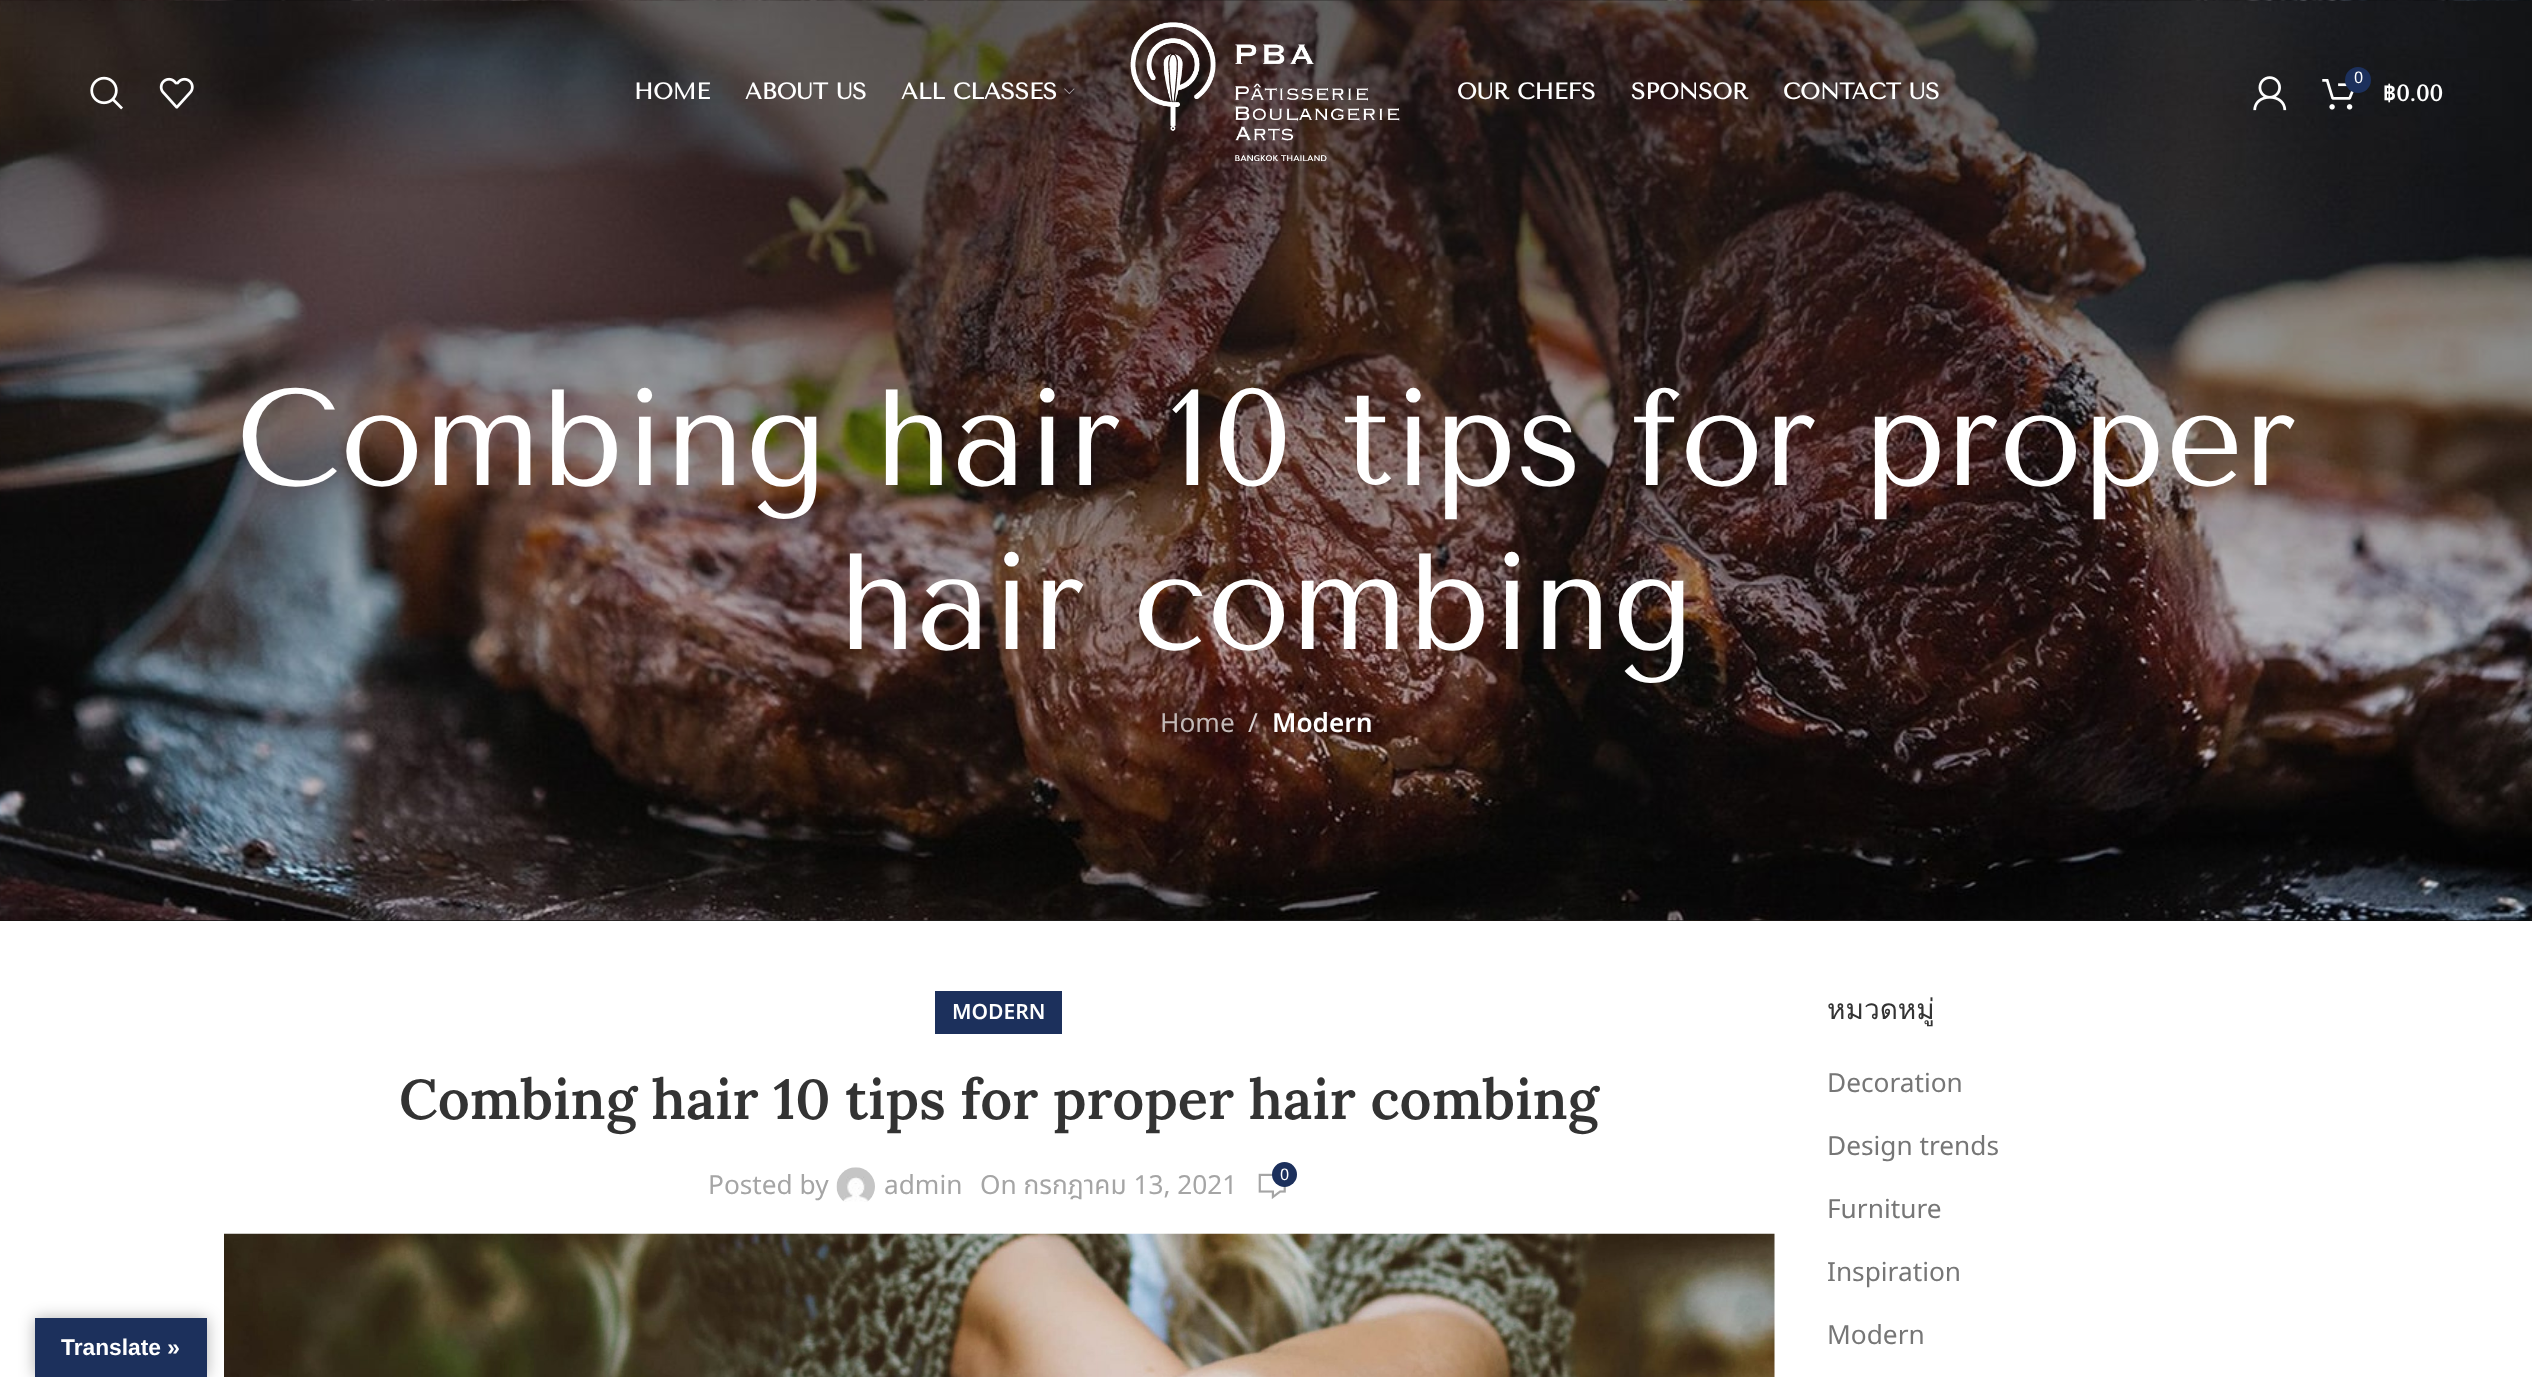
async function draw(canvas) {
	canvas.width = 2532;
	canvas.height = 1377;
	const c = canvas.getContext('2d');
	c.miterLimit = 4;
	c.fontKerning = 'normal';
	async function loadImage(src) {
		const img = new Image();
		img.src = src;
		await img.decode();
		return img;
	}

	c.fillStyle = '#fff';
	c.fillRect(0, 0, 2532, 1377);
	c.fillStyle = '#0a0a0a';
	c.fillRect(0, 920, 2532, 1);
	c.drawImage(await loadImage('img7.png'), 0, 0, 2532, 921);
	c.drawImage(await loadImage('img1.png'), 90, 76, 33, 34);
	c.drawImage(await loadImage('img2.png'), 159, 77, 35, 32);
	c.font = 'bold 22.75px Tenor Sans';
	c.fillStyle = '#fff';
	for (const [text, x, y] of [
		['HOME', 634, 99],
		['ABOUT US', 745, 99],
		['ALL CLASSES', 901, 99],
	]) {
		c.fillText(text, x, y);
	}
	c.drawImage(await loadImage('img3.png'), 1064, 88, 11, 7);
	c.drawImage(await loadImage('img4.png'), 1130, 22, 270, 139);
	for (const [text, x, y] of [
		['OUR CHEFS', 1457, 99],
		['SPONSOR', 1631, 99],
		['CONTACT US', 1783, 99],
	]) {
		c.fillText(text, x, y);
	}
	c.drawImage(await loadImage('img5.png'), 2253, 76, 34, 35);
	c.drawImage(await loadImage('img6.png'), 2322, 79, 32, 31);
	c.fillStyle = '#1c305c';
	c.beginPath();
	c.arc(2358, 80, 13, 0, 2 * Math.PI);
	c.fill();
	c.font = '16px Noto Sans Thai';
	c.fillStyle = '#fff';
	c.fillText('0', 2354, 83);
	c.font = 'bold 22.75px Noto Sans Thai';
	c.fillText('฿', 2383, 101);
	c.font = 'bold 22.75px Tenor Sans';
	c.fillText('0.00', 2396, 101);
	c.font = '136.5px Tenor Sans';
	c.fillText('Combing hair 10 tips for proper', 236, 485);
	c.fillText('hair combing', 839, 649);
	c.font = '26.25px Noto Sans Thai';
	c.fillStyle = '#c3b9b7';
	c.fillText('Home', 1160, 732);
	c.fillStyle = '#d9d2d1';
	c.fillText('/', 1248, 732);
	c.font = '600 26.25px Noto Sans Thai';
	c.fillStyle = '#fff';
	c.fillText('Modern', 1272, 732);
	c.fillStyle = '#1c305c';
	c.fillRect(935, 991, 127, 43);
	c.font = '600 21px Noto Sans Thai';
	c.fillStyle = '#fff';
	c.fillText('MODERN', 952, 1019);
	c.font = '600 56px Lora';
	c.fillStyle = '#333';
	c.fillText('Combing hair 10 tips for proper hair combing', 399, 1119);
	c.font = '26.25px Noto Sans Thai';
	c.fillStyle = '#a5a5a5';
	c.fillText('Posted by', 708, 1194);
	c.drawImage(await loadImage('img8.png'), 836, 1167, 39, 35);
	c.fillText('admin', 884, 1194);
	c.fillText('On กรกฎาคม 13, 2021', 980, 1194);
	c.drawImage(await loadImage('img9.png'), 1258, 1173, 28, 26);
	c.fillStyle = '#1c305c';
	c.beginPath();
	c.arc(1284.5, 1174.5, 12.5, 0, 2 * Math.PI);
	c.fill();
	c.font = '16px Noto Sans Thai';
	c.fillStyle = '#fff';
	c.fillText('0', 1280, 1180);
	c.drawImage(await loadImage('img10.png'), 224, 1233, 1551, 144);
	c.font = '28px Loma';
	c.fillStyle = '#333';
	c.fillText('หมวดหมู่', 1827, 1019);
	c.font = '26.25px Noto Sans Thai';
	c.fillStyle = '#767676';
	for (const [text, x, y] of [
		['Decoration', 1827, 1092],
		['Design trends', 1827, 1155],
		['Furniture', 1827, 1218],
		['Inspiration', 1827, 1281],
		['Modern', 1827, 1344],
	]) {
		c.fillText(text, x, y);
	}
	c.fillStyle = '#0000004d';
	c.filter = 'blur(8px)';
	c.beginPath();
	c.rect(35, 1318, 172, 59);
	c.fill();
	c.filter = 'none';
	c.fillStyle = '#1c305c';
	c.fillRect(35, 1318, 172, 59);
	c.font = 'bold 22.75px Liberation Sans';
	c.fillStyle = '#fff';
	c.fillText('Translate »', 61, 1355);
}

draw(document.querySelector('canvas'));
